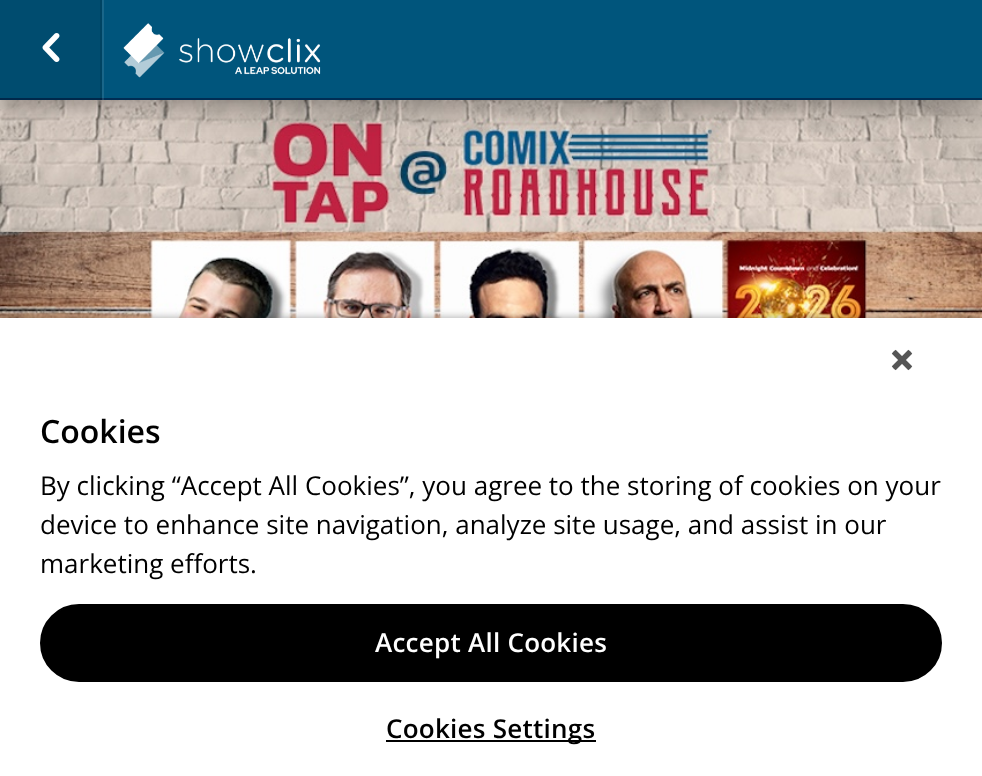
async function draw(canvas) {
	canvas.width = 982;
	canvas.height = 776;
	const c = canvas.getContext('2d');
	c.miterLimit = 4;
	c.fontKerning = 'normal';
	async function loadImage(src) {
		const img = new Image();
		img.src = src;
		await img.decode();
		return img;
	}

	c.fillStyle = '#fff';
	c.fillRect(0, 0, 982, 776);
	c.drawImage(await loadImage('img3.png'), 0, 100, 982, 218);
	c.fillStyle = '#00000066';
	c.filter = 'blur(15px)';
	c.beginPath();
	c.rect(0, 2, 982, 100);
	c.fill();
	c.filter = 'none';
	for (const [x, y, w, h, color] of [
		[0, 0, 982, 98, '#00557c'],
		[0, 98, 982, 2, '#002d54'],
		[102, 0, 2, 100, '#ffffff1a'],
		[0, 0, 102, 100, '#0000001a'],
		[100, 0, 2, 100, '#0000001a'],
	]) {
		c.fillStyle = color;
		c.fillRect(x, y, w, h);
	}
	c.drawImage(await loadImage('img1.png'), 42, 33, 18, 29);
	c.drawImage(await loadImage('img2.png'), 123, 23, 198, 55);
	c.fillStyle = '#00000059';
	c.filter = 'blur(4px)';
	c.beginPath();
	c.rect(0, 318, 982, 458);
	c.fill();
	c.filter = 'none';
	c.fillStyle = '#fff';
	c.fillRect(0, 318, 982, 458);
	c.drawImage(await loadImage('img4.png'), 891, 349, 22, 22);
	c.font = '600 32px Open Sans';
	c.fillStyle = '#000';
	c.fillText('Cookies', 40, 443);
	c.font = '26px Open Sans';
	for (const [text, x, y] of [
		['By clicking “Accept All Cookies”, you agree to the storing of cookies on your', 40, 495],
		['device to enhance site navigation, analyze site usage, and assist in our', 40, 534],
		['marketing efforts.', 40, 573],
	]) {
		c.fillText(text, x, y);
	}
	c.beginPath();
	c.roundRect(41, 605, 900, 76, 38);
	c.fill();
	c.strokeStyle = '#000';
	c.lineWidth = 2;
	c.stroke();
	c.letterSpacing = '0.25px';
	c.font = '600 26px Open Sans';
	c.fillStyle = '#fff';
	c.fillText('Accept All Cookies', 375, 652);
	c.fillStyle = '#000';
	c.fillRect(386, 740, 210, 2);
	c.fillText('Cookies Settings', 386, 738);
}

draw(document.querySelector('canvas'));
